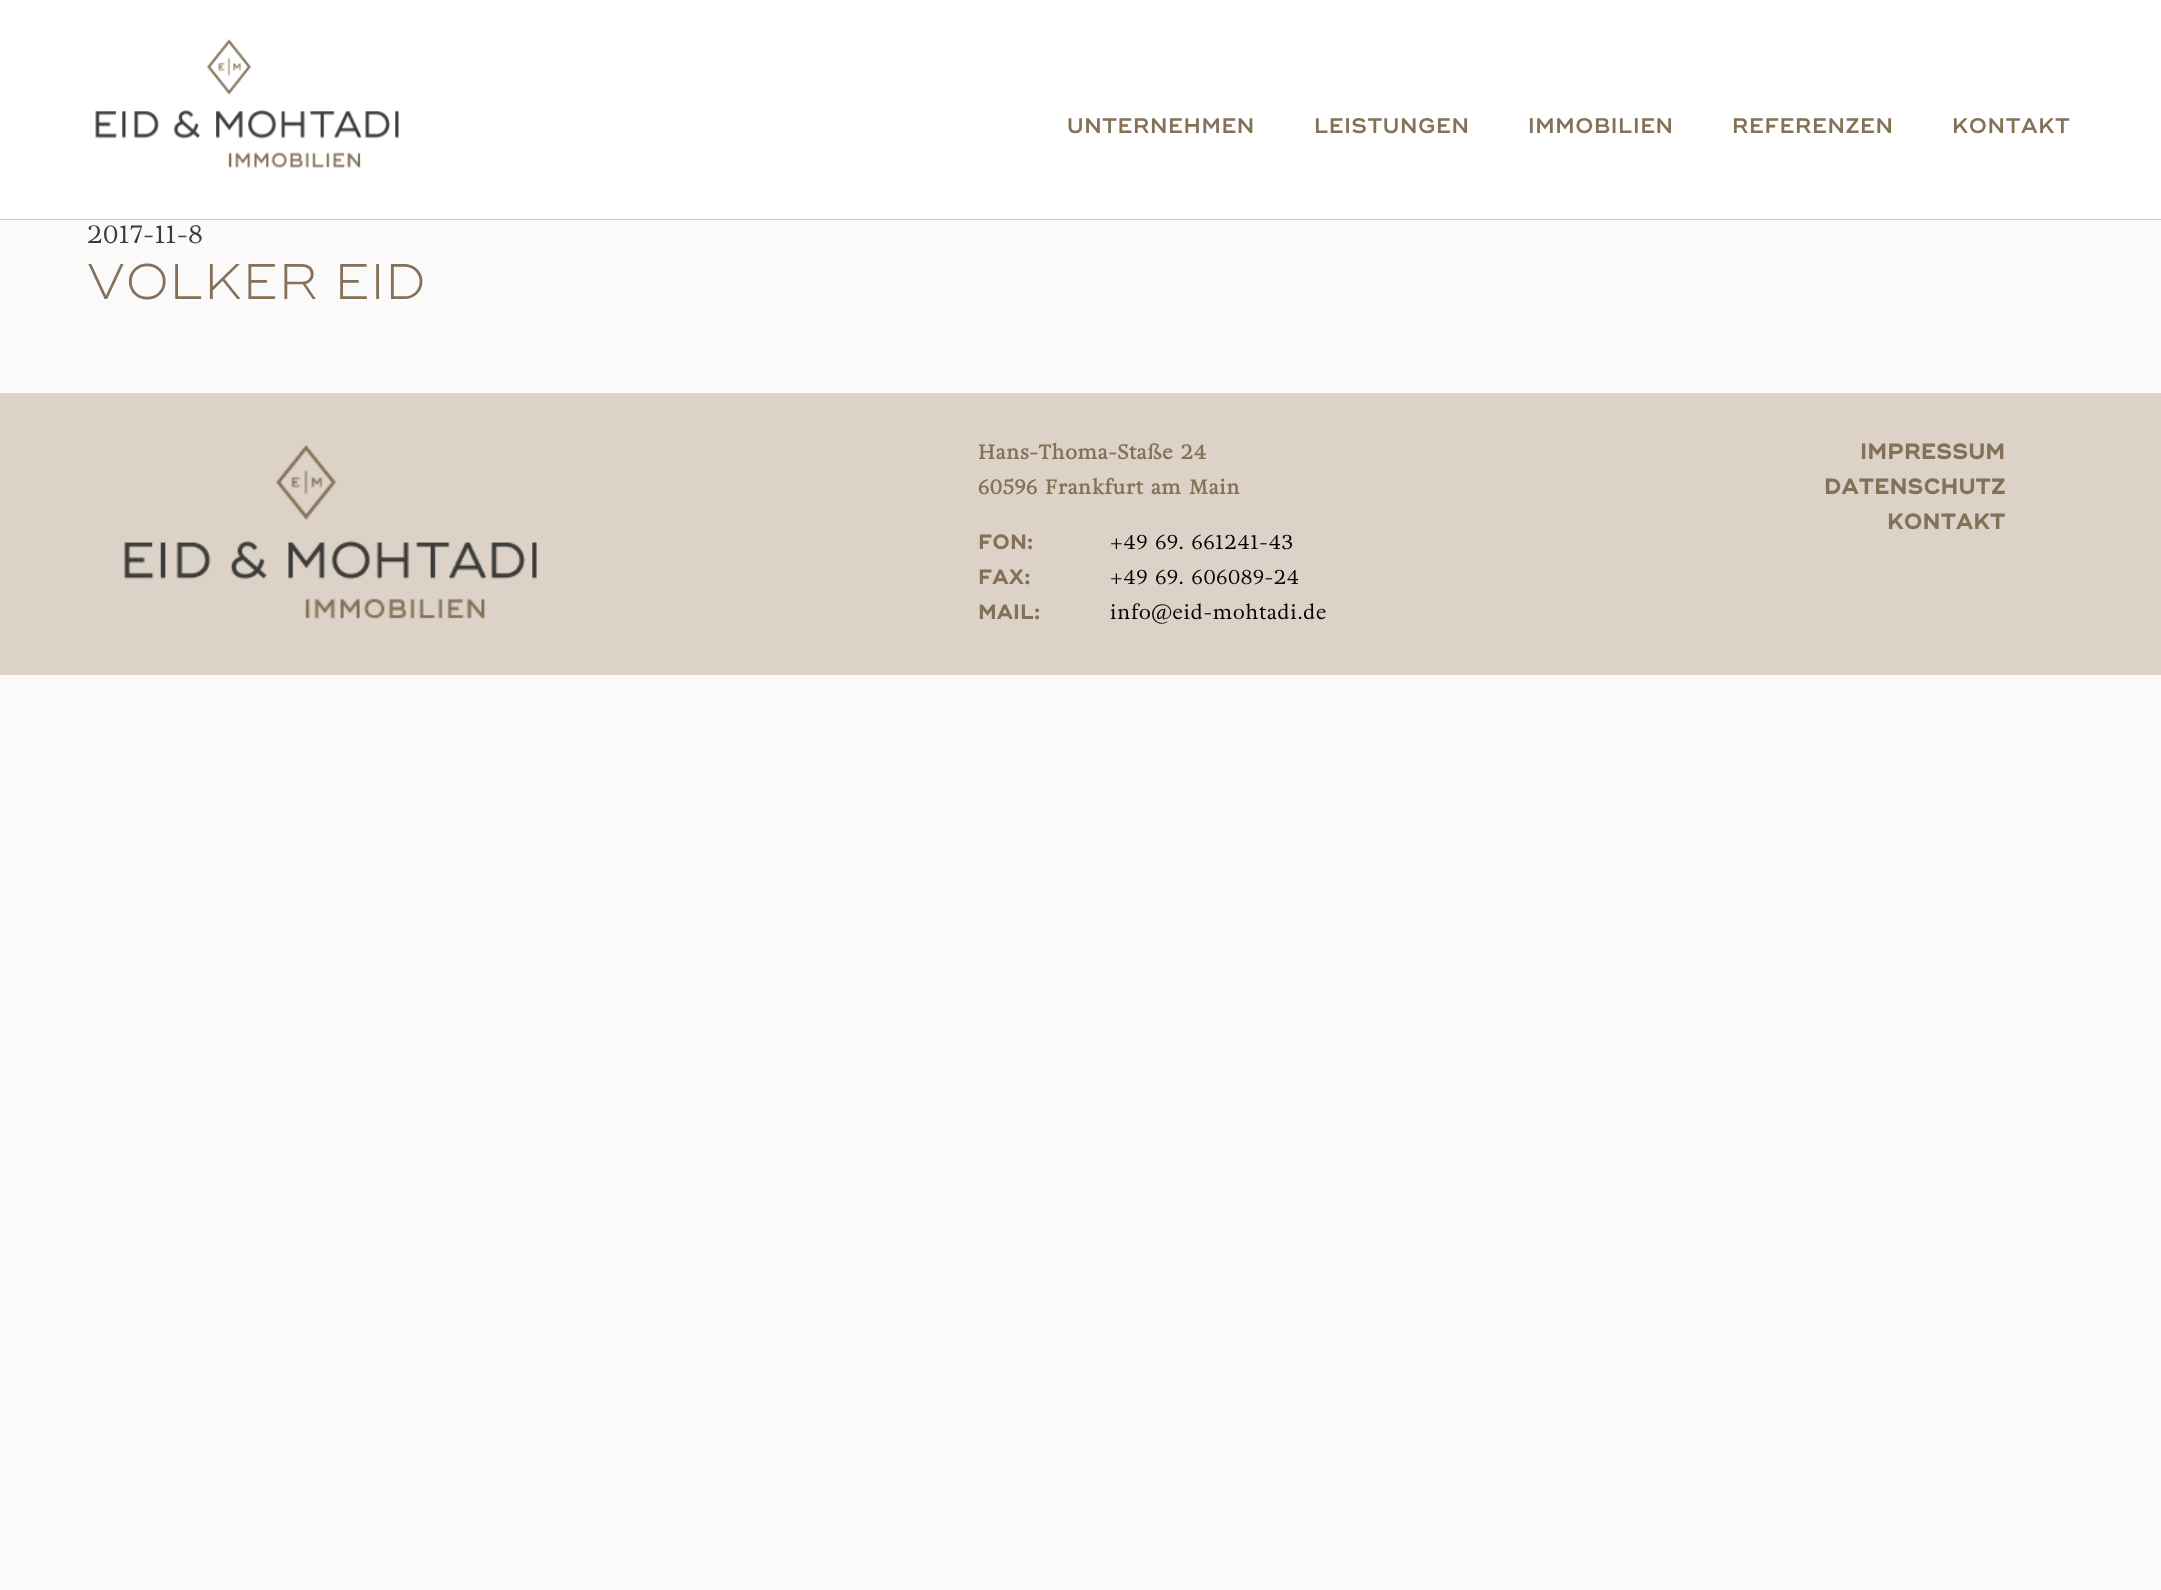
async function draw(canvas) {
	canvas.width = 2161;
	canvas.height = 1590;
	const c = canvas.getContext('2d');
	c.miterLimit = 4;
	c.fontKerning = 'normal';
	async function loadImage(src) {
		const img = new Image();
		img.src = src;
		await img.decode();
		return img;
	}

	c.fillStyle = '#fafafa';
	c.fillRect(0, 0, 2161, 1590);
	c.fillStyle = '#c8c8c8';
	c.fillRect(0, 219, 2161, 1);
	c.fillStyle = '#fff';
	c.fillRect(0, 0, 2161, 219);
	c.drawImage(await loadImage('img1.png'), 95, 39, 305, 129);
	c.letterSpacing = '0.6px';
	c.font = '21.25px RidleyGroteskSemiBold';
	c.fillStyle = '#847158';
	for (const [text, x, y] of [
		['UNTERNEHMEN', 1067, 133],
		['LEISTUNGEN', 1314, 133],
		['IMMOBILIEN', 1528, 133],
		['REFERENZEN', 1732, 133],
		['KONTAKT', 1952, 133],
	]) {
		c.fillText(text, x, y);
	}
	c.font = '25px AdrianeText';
	c.fillStyle = '#3b3b3a';
	c.fillText('2017-11-8', 87, 243);
	c.font = '50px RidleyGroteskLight';
	c.fillStyle = '#847158';
	c.fillText('VOLKER EID', 87, 299);
	c.fillStyle = '#dcd2c7';
	c.fillRect(0, 393, 2161, 282);
	c.drawImage(await loadImage('img2.png'), 124, 445, 413, 174);
	c.font = 'bold 20px AdrianeText';
	c.fillStyle = '#847158';
	c.fillText('Hans-Thoma-Staße 24', 978, 459);
	c.fillText('60596 Frankfurt am Main', 978, 494);
	c.font = 'bold 20px RidleyGroteskSemiBold';
	c.fillText('FON:', 978, 549);
	c.font = '20px AdrianeText';
	c.fillStyle = '#000';
	c.fillText('+49 69. 661241-43', 1110, 549);
	c.font = 'bold 20px RidleyGroteskSemiBold';
	c.fillStyle = '#847158';
	c.fillText('FAX:', 978, 584);
	c.font = '20px AdrianeText';
	c.fillStyle = '#000';
	c.fillText('+49 69. 606089-24', 1110, 584);
	c.font = 'bold 20px RidleyGroteskSemiBold';
	c.fillStyle = '#847158';
	c.fillText('MAIL:', 978, 619);
	c.font = '20px AdrianeText';
	c.fillStyle = '#000';
	c.fillText('info@eid-mohtadi.de', 1110, 619);
	c.font = 'bold 21.25px RidleyGroteskSemiBold';
	c.fillStyle = '#847158';
	for (const [text, x, y] of [
		['IMPRESSUM', 1860, 459],
		['DATENSCHUTZ', 1824, 494],
		['KONTAKT', 1887, 529],
	]) {
		c.fillText(text, x, y);
	}
}

draw(document.querySelector('canvas'));
